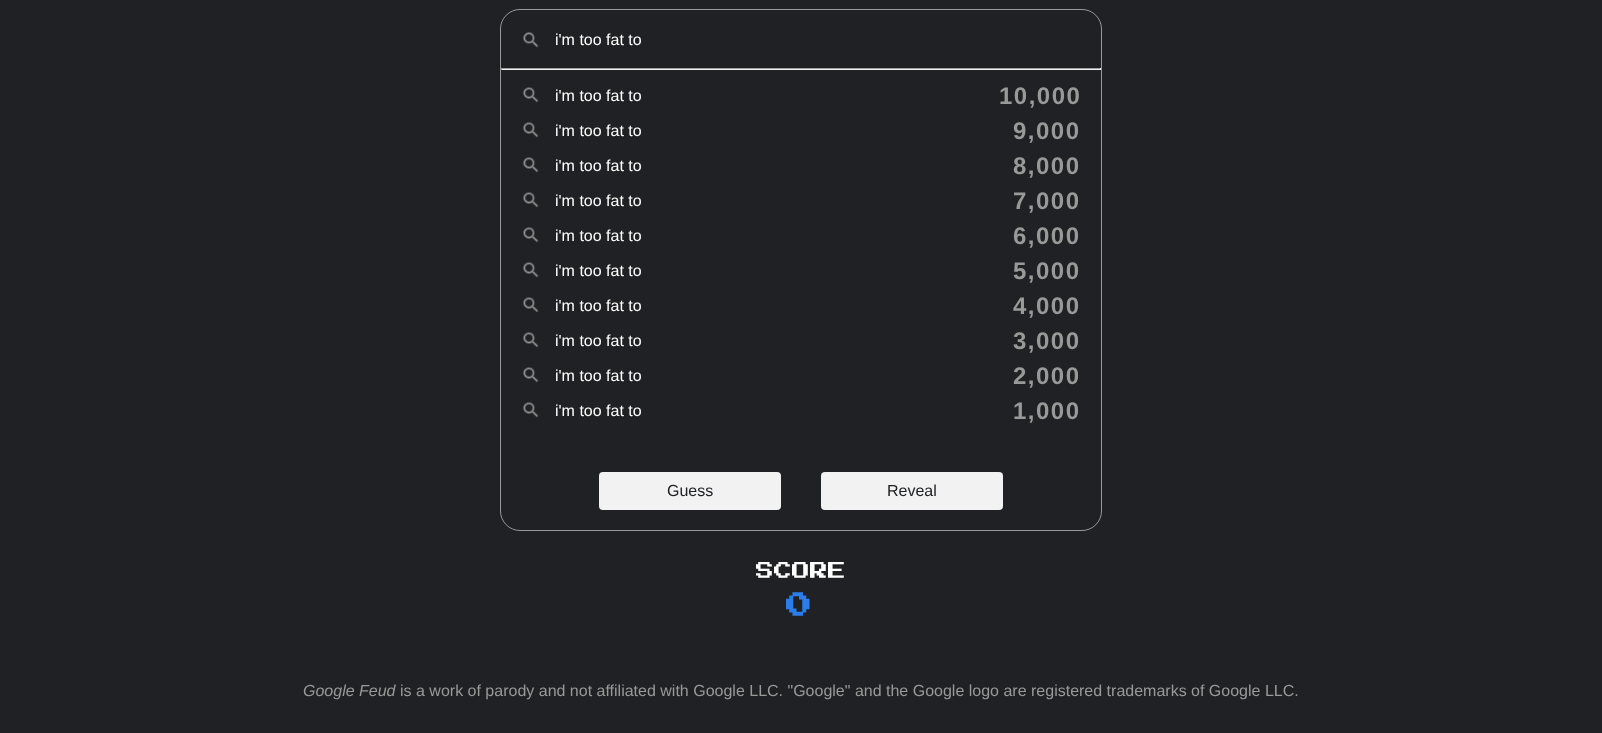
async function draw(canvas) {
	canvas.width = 1602;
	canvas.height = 733;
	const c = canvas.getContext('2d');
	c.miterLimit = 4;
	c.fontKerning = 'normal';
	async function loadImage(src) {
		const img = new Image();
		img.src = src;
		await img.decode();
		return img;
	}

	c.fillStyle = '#202124';
	c.fillRect(0, 0, 1602, 733);
	c.beginPath();
	c.roundRect(500.5, 9.5, 601, 521, 19.5);
	c.strokeStyle = '#999';
	c.stroke();
	c.drawImage(await loadImage('img1.png'), 523, 32, 16, 16);
	c.font = '16px Liberation Sans';
	c.fillStyle = '#fff';
	c.fillText('i\'m too fat to', 555, 45);
	for (const [x, y, w, h, color] of [
		[501, 68, 600, 1, '#a1a1a1'],
		[1100, 68, 1, 2, '#f2f2f2'],
		[501, 69, 600, 1, '#f2f2f2'],
		[501, 68, 1, 2, '#a1a1a1'],
	]) {
		c.fillStyle = color;
		c.fillRect(x, y, w, h);
	}
	c.drawImage(await loadImage('img2.png'), 523, 87, 16, 16);
	c.fillStyle = '#fff';
	c.fillText('i\'m too fat to', 555, 101);
	c.letterSpacing = '1.5px';
	c.font = 'bold 24px Liberation Sans';
	c.fillStyle = '#999';
	c.fillText('10,000', 999, 104);
	c.drawImage(await loadImage('img3.png'), 523, 122, 16, 16);
	c.letterSpacing = '0px';
	c.font = '16px Liberation Sans';
	c.fillStyle = '#fff';
	c.fillText('i\'m too fat to', 555, 136);
	c.letterSpacing = '1.5px';
	c.font = 'bold 24px Liberation Sans';
	c.fillStyle = '#999';
	c.fillText('9,000', 1013, 139);
	c.drawImage(await loadImage('img3.png'), 523, 157, 16, 16);
	c.letterSpacing = '0px';
	c.font = '16px Liberation Sans';
	c.fillStyle = '#fff';
	c.fillText('i\'m too fat to', 555, 171);
	c.letterSpacing = '1.5px';
	c.font = 'bold 24px Liberation Sans';
	c.fillStyle = '#999';
	c.fillText('8,000', 1013, 174);
	c.drawImage(await loadImage('img3.png'), 523, 192, 16, 16);
	c.letterSpacing = '0px';
	c.font = '16px Liberation Sans';
	c.fillStyle = '#fff';
	c.fillText('i\'m too fat to', 555, 206);
	c.letterSpacing = '1.5px';
	c.font = 'bold 24px Liberation Sans';
	c.fillStyle = '#999';
	c.fillText('7,000', 1013, 209);
	c.drawImage(await loadImage('img3.png'), 523, 227, 16, 16);
	c.letterSpacing = '0px';
	c.font = '16px Liberation Sans';
	c.fillStyle = '#fff';
	c.fillText('i\'m too fat to', 555, 241);
	c.letterSpacing = '1.5px';
	c.font = 'bold 24px Liberation Sans';
	c.fillStyle = '#999';
	c.fillText('6,000', 1013, 244);
	c.drawImage(await loadImage('img3.png'), 523, 262, 16, 16);
	c.letterSpacing = '0px';
	c.font = '16px Liberation Sans';
	c.fillStyle = '#fff';
	c.fillText('i\'m too fat to', 555, 276);
	c.letterSpacing = '1.5px';
	c.font = 'bold 24px Liberation Sans';
	c.fillStyle = '#999';
	c.fillText('5,000', 1013, 279);
	c.drawImage(await loadImage('img3.png'), 523, 297, 16, 16);
	c.letterSpacing = '0px';
	c.font = '16px Liberation Sans';
	c.fillStyle = '#fff';
	c.fillText('i\'m too fat to', 555, 311);
	c.letterSpacing = '1.5px';
	c.font = 'bold 24px Liberation Sans';
	c.fillStyle = '#999';
	c.fillText('4,000', 1013, 314);
	c.drawImage(await loadImage('img3.png'), 523, 332, 16, 16);
	c.letterSpacing = '0px';
	c.font = '16px Liberation Sans';
	c.fillStyle = '#fff';
	c.fillText('i\'m too fat to', 555, 346);
	c.letterSpacing = '1.5px';
	c.font = 'bold 24px Liberation Sans';
	c.fillStyle = '#999';
	c.fillText('3,000', 1013, 349);
	c.drawImage(await loadImage('img3.png'), 523, 367, 16, 16);
	c.letterSpacing = '0px';
	c.font = '16px Liberation Sans';
	c.fillStyle = '#fff';
	c.fillText('i\'m too fat to', 555, 381);
	c.letterSpacing = '1.5px';
	c.font = 'bold 24px Liberation Sans';
	c.fillStyle = '#999';
	c.fillText('2,000', 1013, 384);
	c.drawImage(await loadImage('img3.png'), 523, 402, 16, 16);
	c.letterSpacing = '0px';
	c.font = '16px Liberation Sans';
	c.fillStyle = '#fff';
	c.fillText('i\'m too fat to', 555, 416);
	c.letterSpacing = '1.5px';
	c.font = 'bold 24px Liberation Sans';
	c.fillStyle = '#999';
	c.fillText('1,000', 1013, 419);
	c.fillStyle = '#f2f2f2';
	c.beginPath();
	c.roundRect(599, 472, 182, 38, 4);
	c.fill();
	c.letterSpacing = '0px';
	c.font = '16px Liberation Sans';
	c.fillStyle = '#202124';
	c.fillText('Guess', 667, 496);
	c.fillStyle = '#f2f2f2';
	c.beginPath();
	c.roundRect(821, 472, 182, 38, 4);
	c.fill();
	c.fillStyle = '#202124';
	c.fillText('Reveal', 887, 496);
	c.font = '18px "Press Start 2P"';
	c.fillStyle = '#fff';
	c.fillText('SCORE', 756, 580);
	c.letterSpacing = '4px';
	c.font = 'bold 26px "Press Start 2P"';
	c.fillStyle = '#2b7de9';
	c.fillText('0', 786, 619);
	c.letterSpacing = '0px';
	c.font = 'italic 16px Liberation Sans';
	c.fillStyle = '#999';
	c.fillText('Google Feud', 303, 696);
	c.font = '16px Liberation Sans';
	c.fillText('is a work of parody and not affiliated with Google LLC. "Google" and the Google logo are registered trademarks of Google LLC.', 400, 696);
}

draw(document.querySelector('canvas'));
